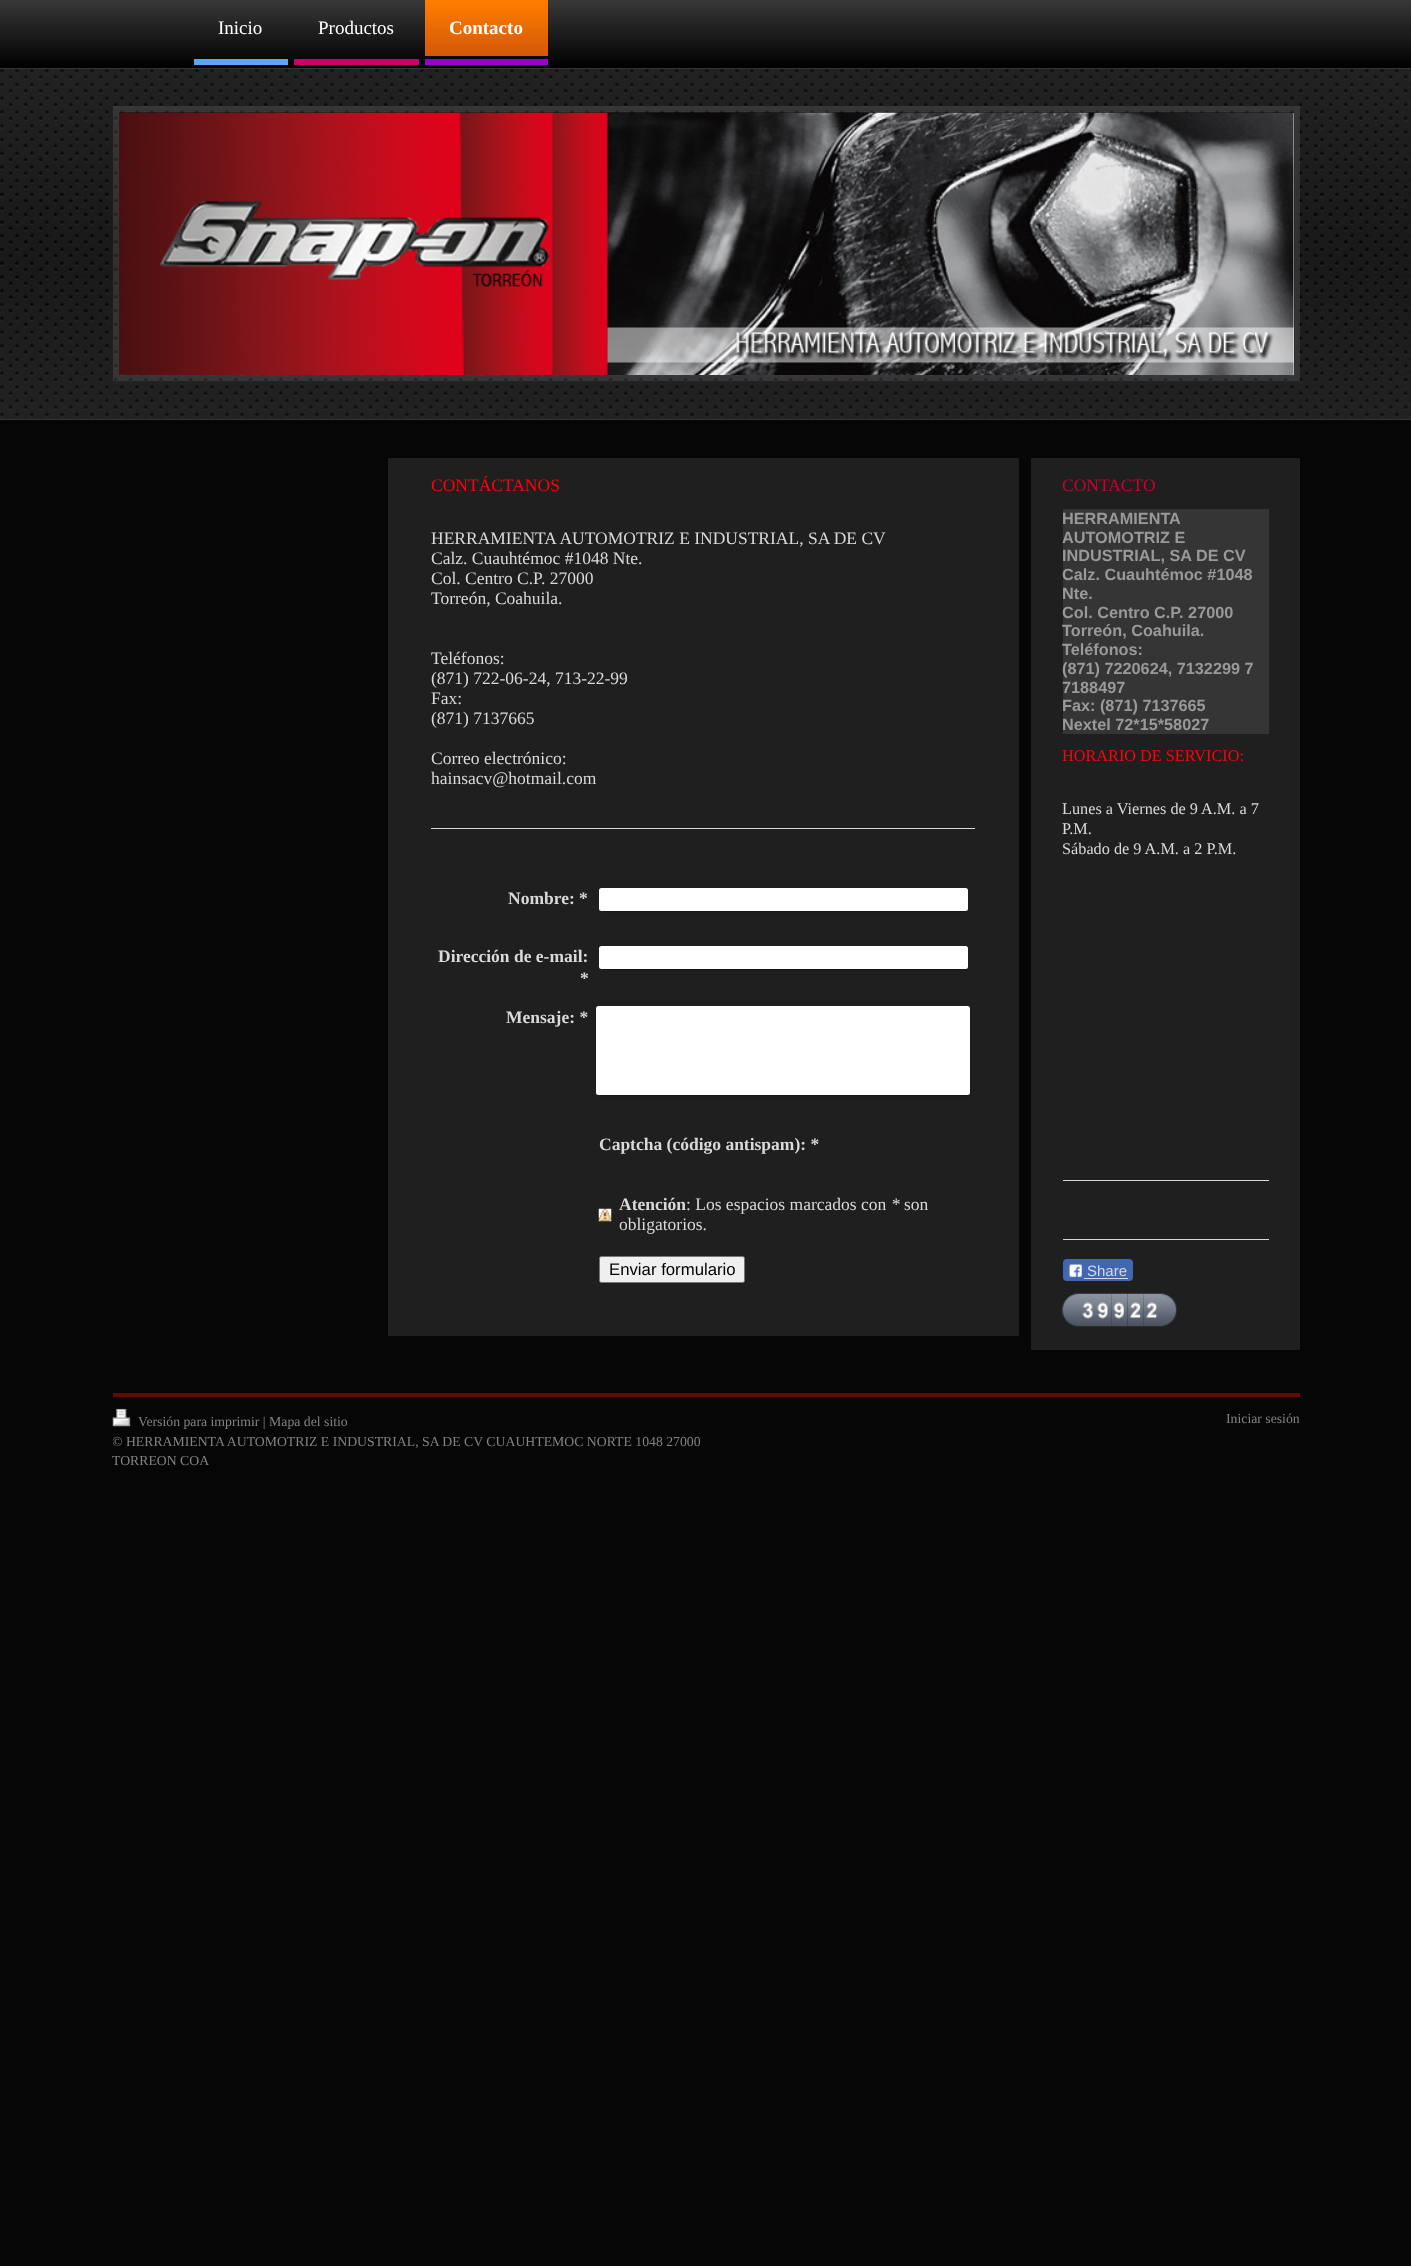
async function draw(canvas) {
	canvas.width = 1411;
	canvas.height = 2266;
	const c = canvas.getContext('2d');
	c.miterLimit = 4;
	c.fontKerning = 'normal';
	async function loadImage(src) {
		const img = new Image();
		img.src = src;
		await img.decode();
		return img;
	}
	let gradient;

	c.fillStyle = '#060606';
	c.fillRect(0, 0, 1411, 2266);
	gradient = c.createLinearGradient(706, 0, 706, 68);
	gradient.addColorStop(0, '#383838');
	gradient.addColorStop(1, '#000');
	c.fillStyle = gradient;
	c.fillRect(0, 0, 1411, 68);
	c.fillStyle = '#3d3d3d';
	c.fillRect(0, 68, 1411, 1);
	c.fillStyle = '#5ca6fa';
	c.fillRect(194, 59, 94, 6);
	c.font = '19px Liberation Serif';
	c.fillStyle = '#fff';
	c.fillText('Inicio', 218, 34);
	c.fillStyle = '#c06';
	c.fillRect(294, 59, 125, 6);
	c.fillStyle = '#fff';
	c.fillText('Productos', 318, 34);
	c.fillStyle = '#90c';
	c.fillRect(425, 59, 123, 6);
	gradient = c.createLinearGradient(486, 0, 486, 56);
	gradient.addColorStop(0, '#ff7e00');
	gradient.addColorStop(1, '#d45807');
	c.fillStyle = gradient;
	c.fillRect(425, 0, 123, 56);
	c.font = 'bold 19px Liberation Serif';
	c.fillStyle = '#fff';
	c.fillText('Contacto', 449, 34);
	c.drawImage(await loadImage('img1.png'), 0, 68, 1411, 351);
	c.fillStyle = '#353535';
	c.fillRect(0, 419, 1411, 1);
	c.strokeStyle = '#ffffff1a';
	c.lineWidth = 6;
	c.strokeRect(116, 109, 1181, 269);
	c.fillStyle = '#eee';
	c.fillRect(1293, 113, 1, 262);
	c.drawImage(await loadImage('img2.png'), 119, 112, 1175, 263);
	c.fillStyle = '#1f1f1f';
	c.fillRect(388, 458, 631, 878);
	c.font = '17.5px Liberation Serif';
	c.fillStyle = '#fd040a';
	c.fillText('CONTÁCTANOS', 431, 491);
	c.fillStyle = '#d9d9d9';
	for (const [text, x, y] of [
		['HERRAMIENTA AUTOMOTRIZ E INDUSTRIAL, SA DE CV', 431, 544],
		['Calz. Cuauhtémoc #1048 Nte.', 431, 564],
		['Col. Centro C.P. 27000', 431, 584],
		['Torreón, Coahuila.', 431, 604],
		['Teléfonos:', 431, 664],
		['(871) 722-06-24, 713-22-99', 431, 684],
		['Fax:', 431, 704],
		['(871) 7137665', 431, 724],
		['Correo electrónico:', 431, 764],
		['hainsacv@hotmail.com', 431, 784],
	]) {
		c.fillText(text, x, y);
	}
	c.fillRect(431, 828, 544, 1);
	c.fillStyle = '#000000cc';
	c.filter = 'blur(1px)';
	c.beginPath();
	c.rect(603, 893, 363, 18);
	c.fill();
	c.filter = 'none';
	c.fillStyle = '#fff';
	c.beginPath();
	c.roundRect(599, 888, 369, 23, 2.5);
	c.fill();
	c.font = 'bold 17.5px Liberation Serif';
	c.fillStyle = '#d9d9d9';
	c.fillText('Nombre: *', 508, 904);
	c.fillStyle = '#000000cc';
	c.filter = 'blur(1px)';
	c.beginPath();
	c.rect(603, 951, 363, 18);
	c.fill();
	c.filter = 'none';
	c.fillStyle = '#fff';
	c.beginPath();
	c.roundRect(599, 946, 369, 23, 2.5);
	c.fill();
	c.fillStyle = '#d9d9d9';
	c.fillText('Dirección de e-mail:', 438, 962);
	c.fillText('*', 580, 984);
	c.fillStyle = '#000000cc';
	c.filter = 'blur(1px)';
	c.beginPath();
	c.rect(600, 1011, 369, 84);
	c.fill();
	c.filter = 'none';
	c.fillStyle = '#fff';
	c.beginPath();
	c.roundRect(596, 1006, 374, 89, 2.5);
	c.fill();
	c.fillStyle = '#d9d9d9';
	c.fillText('Mensaje: *', 506, 1023);
	c.fillText('Captcha (código antispam): *', 599, 1150);
	c.drawImage(await loadImage('img3.png'), 598, 1208, 14, 14);
	c.fillText('Atención', 619, 1210);
	c.font = '17.5px Liberation Serif';
	c.fillText(': Los espacios marcados con', 686, 1210);
	c.font = 'italic 17.5px Liberation Serif';
	c.fillText('*', 891, 1210);
	c.font = '17.5px Liberation Serif';
	c.fillText('son', 904, 1210);
	c.fillText('obligatorios.', 619, 1230);
	c.fillStyle = '#efefef';
	c.beginPath();
	c.roundRect(599.5, 1256.5, 145, 26, 2);
	c.fill();
	c.strokeStyle = '#767676';
	c.lineWidth = 1;
	c.stroke();
	c.font = '16.75px Liberation Sans';
	c.fillStyle = '#000';
	c.fillText('Enviar formulario', 609, 1275);
	c.fillStyle = '#1f1f1f';
	c.fillRect(1031, 458, 269, 892);
	c.font = '17.5px Liberation Serif';
	c.fillStyle = '#c03';
	c.fillText('CONTACTO', 1062, 491);
	c.fillStyle = '#353535';
	c.fillRect(1063, 509, 206, 225);
	c.font = 'bold 16.25px Liberation Sans';
	c.fillStyle = '#999';
	for (const [text, x, y] of [
		['HERRAMIENTA', 1062, 524],
		['AUTOMOTRIZ E', 1062, 543],
		['INDUSTRIAL, SA DE CV', 1062, 561],
		['Calz. Cuauhtémoc #1048', 1062, 580],
		['Nte.', 1062, 599],
		['Col. Centro C.P. 27000', 1062, 618],
		['Torreón, Coahuila.', 1062, 636],
		['Teléfonos:', 1062, 655],
		['(871) 7220624, 7132299 7', 1062, 674],
		['7188497', 1062, 693],
		['Fax: (871) 7137665', 1062, 711],
		['Nextel 72*15*58027', 1062, 730],
	]) {
		c.fillText(text, x, y);
	}
	c.font = '16.25px Liberation Serif';
	c.fillStyle = '#fd040a';
	c.fillText('HORARIO DE SERVICIO:', 1062, 761);
	c.fillStyle = '#d9d9d9';
	for (const [text, x, y] of [
		['Lunes a Viernes de 9 A.M. a 7', 1062, 814],
		['P.M.', 1062, 834],
		['Sábado de 9 A.M. a 2 P.M.', 1062, 854],
	]) {
		c.fillText(text, x, y);
	}
	c.fillRect(1063, 1180, 206, 1);
	c.fillRect(1063, 1239, 206, 1);
	c.fillStyle = '#4267b2';
	c.beginPath();
	c.roundRect(1063, 1259, 70, 22, 4);
	c.fill();
	c.drawImage(await loadImage('img4.png'), 1069, 1264, 13, 13);
	c.font = '15px Liberation Sans';
	c.fillStyle = '#d9d9d9';
	c.fillText('Share', 1087, 1276);
	c.fillStyle = '#d8d8d8';
	c.fillRect(1084, 1278, 44, 1);
	c.drawImage(await loadImage('img5.png'), 1062, 1293, 18, 34);
	c.drawImage(await loadImage('img6.png'), 1080, 1293, 15, 34);
	c.drawImage(await loadImage('img7.png'), 1095, 1293, 17, 34);
	c.drawImage(await loadImage('img8.png'), 1111, 1293, 17, 34);
	c.drawImage(await loadImage('img9.png'), 1127, 1293, 17, 34);
	c.drawImage(await loadImage('img10.png'), 1143, 1293, 17, 34);
	c.drawImage(await loadImage('img11.png'), 1160, 1293, 17, 34);
	c.fillStyle = '#6c0606';
	c.fillRect(113, 1393, 1187, 4);
	c.drawImage(await loadImage('img12.png'), 112, 1408, 19, 19);
	c.font = '13.75px Liberation Serif';
	c.fillStyle = '#838383';
	c.fillText('Versión para imprimir | Mapa del sitio', 138, 1426);
	c.save();
	c.beginPath();
	c.rect(113, 1409, 1187, 61);
	c.clip();
	c.fillText('© HERRAMIENTA AUTOMOTRIZ E INDUSTRIAL, SA DE CV CUAUHTEMOC NORTE 1048 27000', 112, 1446);
	c.restore();
	c.fillText('TORREON COA', 112, 1465);
	c.fillText('Iniciar sesión', 1226, 1423);
}

draw(document.querySelector('canvas'));
